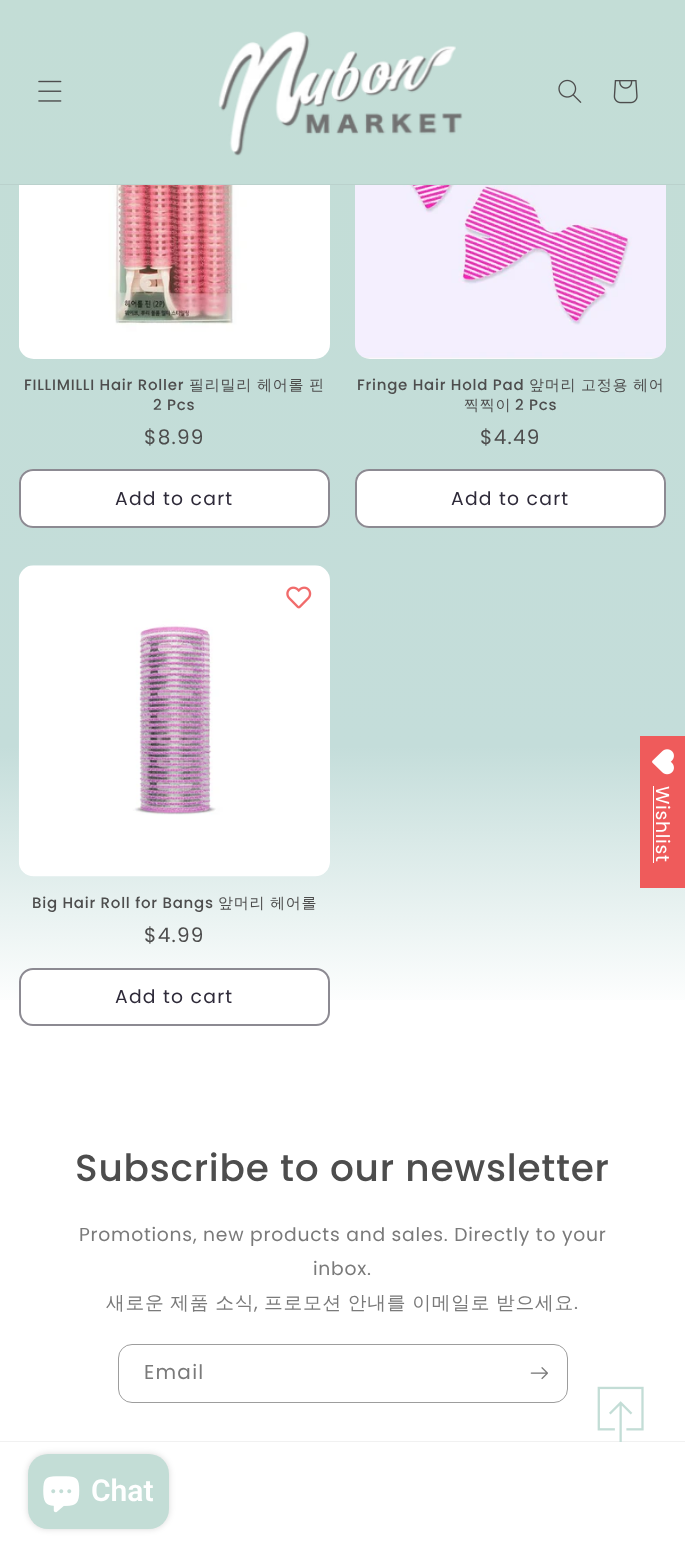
async function draw(canvas) {
	canvas.width = 685;
	canvas.height = 1555;
	const c = canvas.getContext('2d');
	c.miterLimit = 4;
	c.fontKerning = 'normal';
	async function loadImage(src) {
		const img = new Image();
		img.src = src;
		await img.decode();
		return img;
	}
	let gradient;

	c.fillStyle = '#fff';
	c.fillRect(0, 0, 685, 1555);
	gradient = c.createLinearGradient(342, 0, 343, 1555);
	gradient.addColorStop(0, '#c3ddd6');
	gradient.addColorStop(0.48, '#c4ddda');
	gradient.addColorStop(0.65, '#fff');
	c.fillStyle = gradient;
	c.fillRect(0, 185, 685, 815);
	c.fillRect(0, 0, 685, 184);
	c.fillStyle = '#bad1cc';
	c.fillRect(0, 184, 685, 1);
	c.drawImage(await loadImage('img1.png'), 38, 80, 24, 22);
	c.drawImage(await loadImage('img2.png'), 218, 31, 245, 125);
	c.drawImage(await loadImage('img3.png'), 558, 79, 24, 24);
	c.drawImage(await loadImage('img4.png'), 613, 80, 25, 24);
	c.drawImage(await loadImage('img5.png'), 19, 185, 311, 174);
	c.letterSpacing = '0.75px';
	c.font = '500 15px Poppins';
	c.fillStyle = '#4d4d4d';
	c.fillText('FILLIMILLI Hair Roller', 24, 390);
	c.font = '500 15px WenQuanYi Zen Hei';
	for (const [text, x, y] of [
		['필리밀리', 189, 390],
		['헤어롤', 257, 390],
		['핀', 309, 390],
	]) {
		c.fillText(text, x, y);
	}
	c.font = '500 15px Poppins';
	c.fillText('2 Pcs', 153, 410);
	c.letterSpacing = '1.25px';
	c.font = '20px Poppins';
	c.fillText('$8.99', 144, 444);
	c.fillStyle = '#fff';
	c.beginPath();
	c.roundRect(19, 469, 311, 59, 14);
	c.fill();
	c.beginPath();
	c.roundRect(19.5, 469.5, 310, 58, 13.5);
	c.strokeStyle = '#fff';
	c.stroke();
	c.beginPath();
	c.roundRect(20, 470, 309, 57, 13);
	c.strokeStyle = '#2e2a398c';
	c.lineWidth = 2;
	c.stroke();
	c.font = '18.75px Poppins';
	c.fillStyle = '#2e2a39';
	c.fillText('Add to cart', 115, 505);
	c.drawImage(await loadImage('img6.png'), 355, 185, 311, 174);
	c.letterSpacing = '0.75px';
	c.font = '500 15px Poppins';
	c.fillStyle = '#4d4d4d';
	c.fillText('Fringe Hair Hold Pad', 357, 390);
	c.font = '500 15px WenQuanYi Zen Hei';
	for (const [text, x, y] of [
		['앞머리', 529, 390],
		['고정용', 581, 390],
		['헤어', 633, 390],
		['찍찍이', 464, 410],
	]) {
		c.fillText(text, x, y);
	}
	c.font = '500 15px Poppins';
	c.fillText('2 Pcs', 515, 410);
	c.letterSpacing = '1.25px';
	c.font = '20px Poppins';
	c.fillText('$4.49', 480, 444);
	c.fillStyle = '#fff';
	c.beginPath();
	c.roundRect(355, 469, 311, 59, 14);
	c.fill();
	c.beginPath();
	c.roundRect(355.5, 469.5, 310, 58, 13.5);
	c.strokeStyle = '#fff';
	c.lineWidth = 1;
	c.stroke();
	c.beginPath();
	c.roundRect(356, 470, 309, 57, 13);
	c.strokeStyle = '#2e2a398c';
	c.lineWidth = 2;
	c.stroke();
	c.font = '18.75px Poppins';
	c.fillStyle = '#2e2a39';
	c.fillText('Add to cart', 451, 505);
	c.drawImage(await loadImage('img8.png'), 18, 565, 312, 312);
	c.drawImage(await loadImage('img7.png'), 286, 586, 26, 23);
	c.letterSpacing = '0.75px';
	c.font = '500 15px Poppins';
	c.fillStyle = '#4d4d4d';
	c.fillText('Big Hair Roll for Bangs', 32, 908);
	c.font = '500 15px WenQuanYi Zen Hei';
	c.fillText('앞머리', 218, 908);
	c.fillText('헤어롤', 270, 908);
	c.letterSpacing = '1.25px';
	c.font = '20px Poppins';
	c.fillText('$4.99', 144, 942);
	c.fillStyle = '#fff';
	c.beginPath();
	c.roundRect(19, 968, 311, 58, 14);
	c.fill();
	c.beginPath();
	c.roundRect(20, 969, 309, 56, 13);
	c.strokeStyle = '#8c8a92';
	c.stroke();
	c.font = '18.75px Poppins';
	c.fillStyle = '#2e2a39';
	c.fillText('Add to cart', 115, 1003);
	c.fillStyle = '#ef5b5b';
	c.fillRect(640, 736, 45, 152);
	c.drawImage(await loadImage('img9.png'), 652, 749, 22, 26);
	c.letterSpacing = '0.75px';
	c.fillStyle = '#fff';
	c.save();
	c.translate(656, 786);
	c.rotate(90 * Math.PI / 180);
	c.fillText('Wishlist', 0, 0);
	c.restore();
	c.fillRect(653, 786, 1, 77);
	c.font = '500 37.5px Poppins';
	c.fillStyle = '#4d4d4d';
	c.fillText('Subscribe to our newsletter', 75, 1181);
	c.font = '18.75px Poppins';
	c.fillStyle = '#7a7a7a';
	c.fillText('Promotions, new products and sales. Directly to your', 79, 1241);
	c.fillText('inbox.', 313, 1275);
	c.wordSpacing = '-0.5px';
	c.font = '500 18.75px WenQuanYi Zen Hei';
	c.fillText('새로운 제품 소식', 106, 1309);
	c.wordSpacing = '0px';
	c.font = '18.75px Poppins';
	c.fillText(',', 254, 1309);
	c.wordSpacing = '-0.5px';
	c.font = '500 18.75px WenQuanYi Zen Hei';
	c.fillText('프로모션 안내를 이메일로 받으세요', 264, 1309);
	c.wordSpacing = '0px';
	c.font = '18.75px Poppins';
	c.fillText('.', 574, 1309);
	c.beginPath();
	c.roundRect(118.5, 1344.5, 449, 58, 13.5);
	c.strokeStyle = '#9d9d9d';
	c.lineWidth = 1;
	c.stroke();
	c.letterSpacing = '1.25px';
	c.font = '20px Poppins';
	c.fillText('Email', 144, 1379);
	c.drawImage(await loadImage('img10.png'), 530, 1367, 18, 13);
	c.fillStyle = '#f1f1f1';
	c.fillRect(0, 1441, 685, 1);
	c.drawImage(await loadImage('img11.png'), 597, 1386, 47, 56);
	c.fillStyle = '#00000026';
	c.filter = 'blur(3px)';
	c.beginPath();
	c.roundRect(28, 1454, 141, 75, 20);
	c.fill();
	c.filter = 'none';
	c.fillStyle = '#c3ddd6';
	c.beginPath();
	c.roundRect(28, 1454, 141, 75, 20);
	c.fill();
	c.drawImage(await loadImage('img12.png'), 43, 1476, 37, 37);
	c.letterSpacing = '0px';
	c.font = '600 30px Roboto';
	c.fillStyle = '#fff';
	c.fillText('Chat', 91, 1501);
}

draw(document.querySelector('canvas'));
